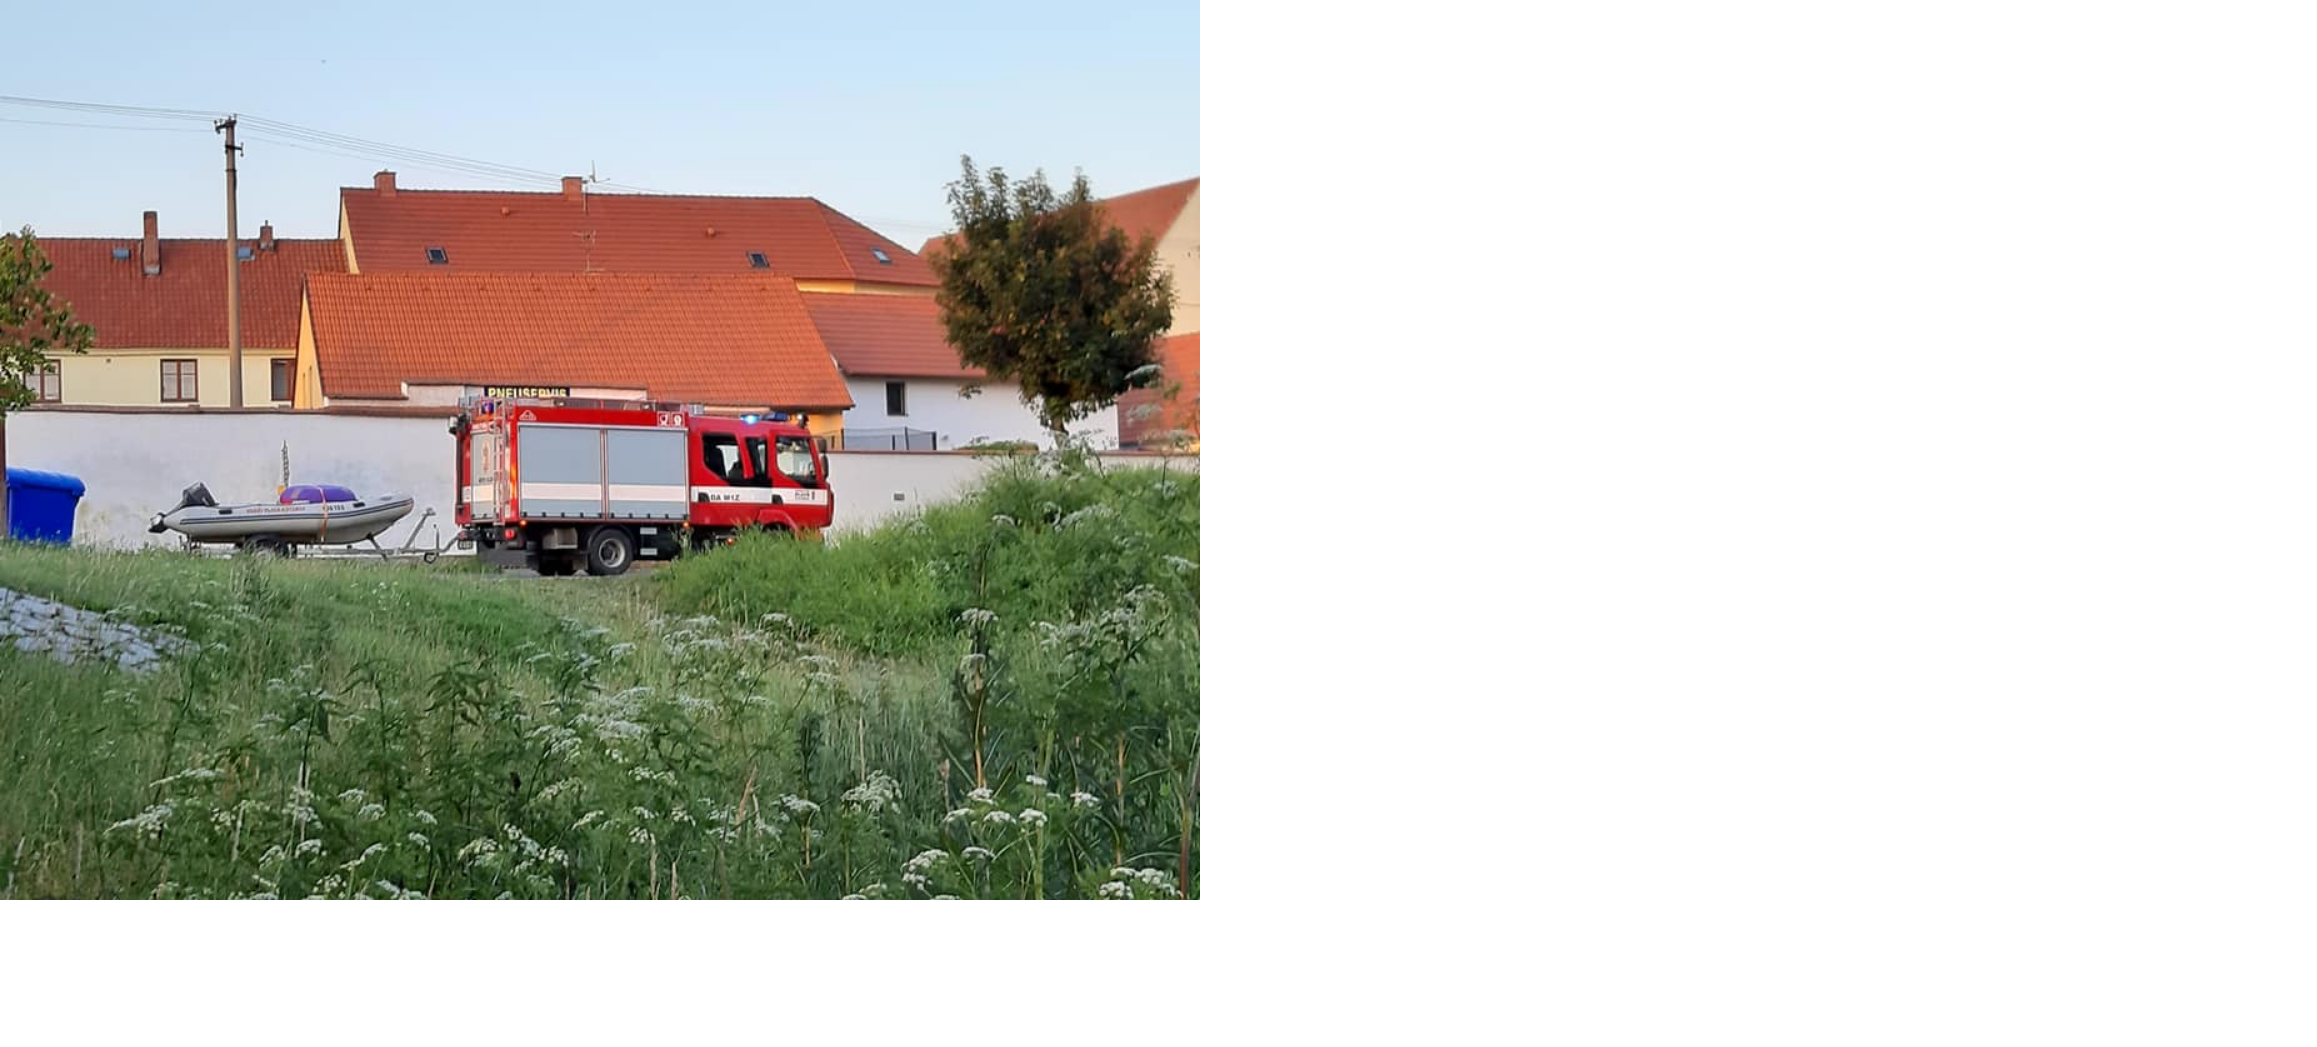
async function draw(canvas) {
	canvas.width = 2317;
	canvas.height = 1047;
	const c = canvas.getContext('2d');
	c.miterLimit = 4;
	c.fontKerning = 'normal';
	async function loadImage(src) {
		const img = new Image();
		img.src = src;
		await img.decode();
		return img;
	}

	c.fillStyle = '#fff';
	c.fillRect(0, 0, 2317, 1047);
	c.drawImage(await loadImage('img1.png'), 0, 0, 1200, 900);
}

draw(document.querySelector('canvas'));
